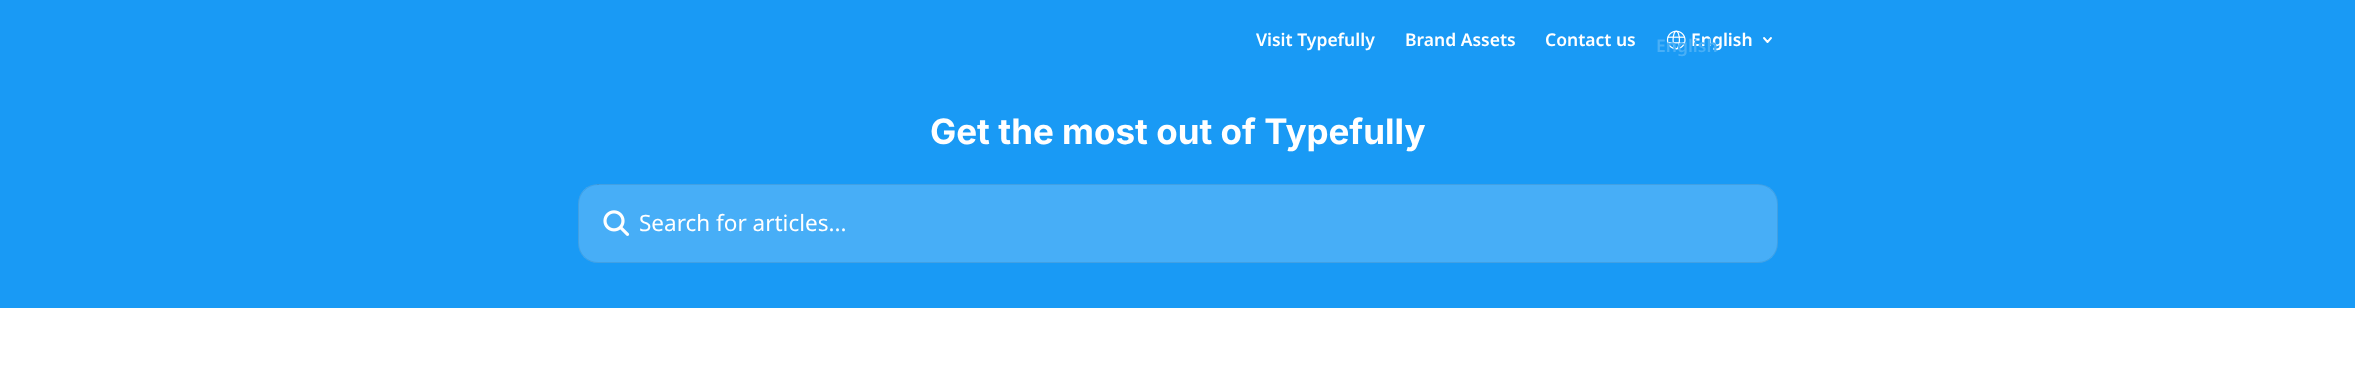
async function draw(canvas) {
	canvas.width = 2355;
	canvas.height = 383;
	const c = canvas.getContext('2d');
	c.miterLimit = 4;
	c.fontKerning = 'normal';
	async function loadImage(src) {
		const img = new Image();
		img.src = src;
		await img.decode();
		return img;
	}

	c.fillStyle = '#fff';
	c.fillRect(0, 0, 2355, 383);
	c.fillStyle = '#199af5';
	c.fillRect(0, 0, 2355, 308);
	c.font = '600 17.5px Noto Sans';
	c.fillStyle = '#fff';
	for (const [text, x, y] of [
		['Visit Typefully', 1256, 46],
		['Brand Assets', 1405, 46],
		['Contact us', 1545, 46],
	]) {
		c.fillText(text, x, y);
	}
	c.drawImage(await loadImage('img1.png'), 1666, 30, 20, 20);
	c.fillText('English', 1691, 46);
	c.fillStyle = '#48aff7';
	c.fillText('English', 1656, 52);
	c.beginPath();
	c.moveTo(1764, 38);
	c.lineTo(1767.5, 42);
	c.lineTo(1771, 38);
	c.strokeStyle = '#fff';
	c.lineWidth = 1.9;
	c.lineCap = 'round';
	c.lineJoin = 'round';
	c.stroke();
	c.font = 'bold 35px Inter';
	c.fillStyle = '#fff';
	c.fillText('Get the most out of Typefully', 930, 144);
	c.fillStyle = '#ffffff33';
	c.beginPath();
	c.roundRect(578, 184, 1200, 79, 20);
	c.fill();
	c.beginPath();
	c.roundRect(578.5, 184.5, 1199, 78, 19.5);
	c.strokeStyle = '#00000014';
	c.lineWidth = 1;
	c.lineJoin = 'miter';
	c.stroke();
	c.drawImage(await loadImage('img2.png'), 603, 210, 27, 26);
	c.font = '22.5px Noto Sans';
	c.fillStyle = '#fff';
	c.fillText('Search for articles...', 639, 231);
}

draw(document.querySelector('canvas'));
